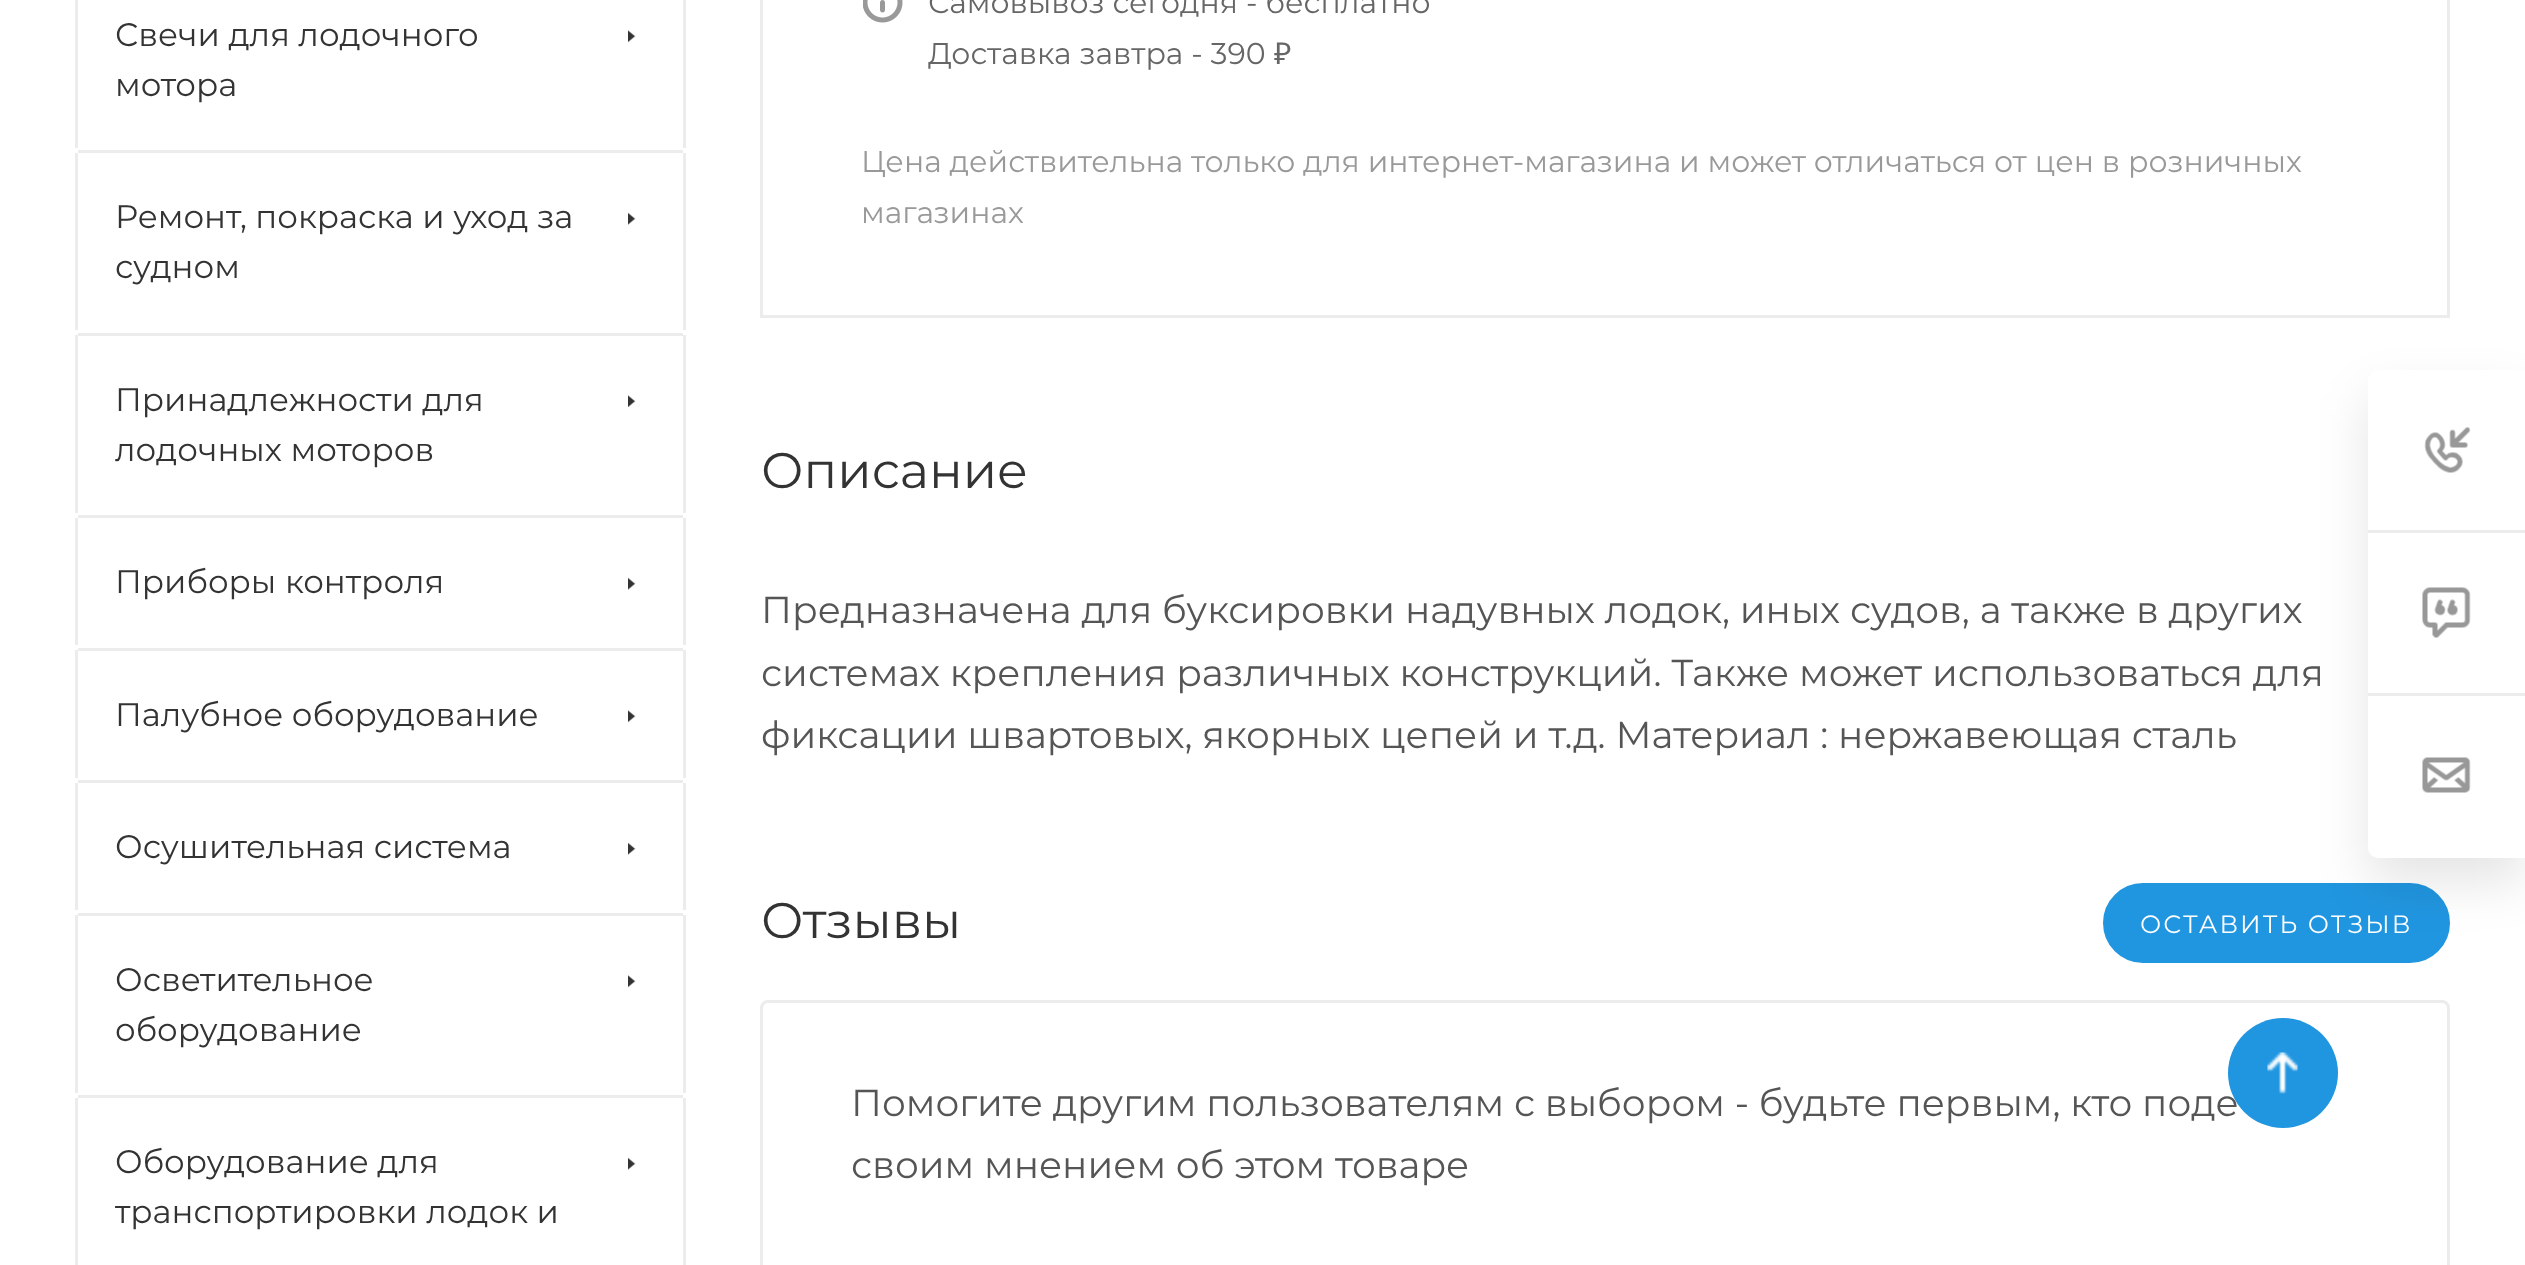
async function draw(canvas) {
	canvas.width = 2525;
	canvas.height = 1265;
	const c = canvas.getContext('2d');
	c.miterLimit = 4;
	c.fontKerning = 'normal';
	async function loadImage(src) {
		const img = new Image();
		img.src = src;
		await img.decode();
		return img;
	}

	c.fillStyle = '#fff';
	c.fillRect(0, 0, 2525, 1265);
	c.fillStyle = '#ececec';
	c.fillRect(683, 0, 3, 148);
	c.fillRect(75, 0, 3, 148);
	c.font = '32.5px Montserrat';
	c.fillStyle = '#333';
	c.fillText('Свечи для лодочного', 115, 46);
	c.drawImage(await loadImage('img1.png'), 628, 30, 8, 13);
	c.fillText('мотора', 115, 96);
	for (const [x, y, w, h, color] of [
		[78, 150, 605, 3, '#ececec'],
		[683, 153, 3, 177, '#ececec'],
		[75, 153, 3, 177, '#ececec'],
	]) {
		c.fillStyle = color;
		c.fillRect(x, y, w, h);
	}
	c.fillStyle = '#333';
	c.fillText('Ремонт, покраска и уход за', 115, 228);
	c.drawImage(await loadImage('img2.png'), 628, 212, 8, 13);
	c.fillText('судном', 115, 278);
	for (const [x, y, w, h, color] of [
		[78, 333, 605, 3, '#ececec'],
		[683, 335, 3, 178, '#ececec'],
		[75, 335, 3, 178, '#ececec'],
	]) {
		c.fillStyle = color;
		c.fillRect(x, y, w, h);
	}
	c.fillStyle = '#333';
	c.fillText('Принадлежности для', 115, 411);
	c.drawImage(await loadImage('img1.png'), 628, 395, 8, 13);
	c.fillText('лодочных моторов', 115, 461);
	for (const [x, y, w, h, color] of [
		[78, 515, 605, 3, '#ececec'],
		[683, 518, 3, 127, '#ececec'],
		[75, 518, 3, 127, '#ececec'],
	]) {
		c.fillStyle = color;
		c.fillRect(x, y, w, h);
	}
	c.fillStyle = '#333';
	c.fillText('Приборы контроля', 115, 593);
	c.drawImage(await loadImage('img2.png'), 628, 577, 8, 13);
	for (const [x, y, w, h, color] of [
		[78, 648, 605, 3, '#ececec'],
		[683, 650, 3, 128, '#ececec'],
		[75, 650, 3, 128, '#ececec'],
	]) {
		c.fillStyle = color;
		c.fillRect(x, y, w, h);
	}
	c.fillStyle = '#333';
	c.fillText('Палубное оборудование', 115, 726);
	c.drawImage(await loadImage('img1.png'), 628, 710, 8, 13);
	for (const [x, y, w, h, color] of [
		[78, 780, 605, 3, '#ececec'],
		[683, 783, 3, 127, '#ececec'],
		[75, 783, 3, 127, '#ececec'],
	]) {
		c.fillStyle = color;
		c.fillRect(x, y, w, h);
	}
	c.fillStyle = '#333';
	c.fillText('Осушительная система', 115, 858);
	c.drawImage(await loadImage('img2.png'), 628, 842, 8, 13);
	for (const [x, y, w, h, color] of [
		[78, 913, 605, 3, '#ececec'],
		[683, 915, 3, 178, '#ececec'],
		[75, 915, 3, 178, '#ececec'],
	]) {
		c.fillStyle = color;
		c.fillRect(x, y, w, h);
	}
	c.fillStyle = '#333';
	c.fillText('Осветительное', 115, 991);
	c.drawImage(await loadImage('img1.png'), 628, 975, 8, 13);
	c.fillText('оборудование', 115, 1041);
	for (const [x, y, w, h, color] of [
		[78, 1095, 605, 3, '#ececec'],
		[683, 1098, 3, 167, '#ececec'],
		[75, 1098, 3, 167, '#ececec'],
	]) {
		c.fillStyle = color;
		c.fillRect(x, y, w, h);
	}
	c.fillStyle = '#333';
	c.fillText('Оборудование для', 115, 1173);
	c.drawImage(await loadImage('img2.png'), 628, 1157, 8, 13);
	c.fillText('транспортировки лодок и', 115, 1223);
	c.strokeStyle = '#ececec';
	c.lineWidth = 3;
	c.strokeRect(761.5, -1.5, 1687, 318);
	c.drawImage(await loadImage('img3.png'), 863, 0, 40, 23);
	c.font = '30px Montserrat';
	c.fillStyle = '#666';
	c.fillText('Самовывоз сегодня - бесплатно', 928, 13);
	c.fillText('Доставка завтра - 390', 928, 64);
	c.font = '30px Noto Sans';
	c.fillText('₽', 1274, 64);
	c.font = '30px Montserrat';
	c.fillStyle = '#999';
	c.fillText('Цена действительна только для интернет-магазина и может отличаться от цен в розничных', 861, 172);
	c.fillText('магазинах', 861, 223);
	c.font = '50px Montserrat';
	c.fillStyle = '#333';
	c.fillText('Описание', 761, 488);
	c.font = '37.5px Montserrat';
	c.fillStyle = '#555';
	for (const [text, x, y] of [
		['Предназначена для буксировки надувных лодок, иных судов, а также в других', 761, 623],
		['системах крепления различных конструкций. Также может использоваться для', 761, 686],
		['фиксации швартовых, якорных цепей и т.д. Материал : нержавеющая сталь', 761, 748],
	]) {
		c.fillText(text, x, y);
	}
	c.font = '50px Montserrat';
	c.fillStyle = '#333';
	c.fillText('Отзывы', 761, 938);
	c.fillStyle = '#2196e0';
	c.beginPath();
	c.roundRect(2104.5, 884.5, 344, 77, 38.5);
	c.fill();
	c.strokeStyle = '#2196e0';
	c.stroke();
	c.letterSpacing = '2px';
	c.font = '25px Montserrat';
	c.fillStyle = '#fff';
	c.fillText('ОСТАВИТЬ ОТЗЫВ', 2140, 933);
	c.beginPath();
	c.roundRect(761.5, 1001.5, 1687, 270, 6.5);
	c.strokeStyle = '#ececec';
	c.stroke();
	c.letterSpacing = '0px';
	c.font = '37.5px Montserrat';
	c.fillStyle = '#555';
	c.fillText('Помогите другим пользователям с выбором - будьте первым, кто поде', 851, 1116);
	c.fillText('своим мнением об этом товаре', 851, 1178);
	c.fillStyle = '#0000001a';
	c.filter = 'blur(25px)';
	c.beginPath();
	c.roundRect(2368, 395, 157, 488, 10);
	c.fill();
	c.filter = 'none';
	c.fillStyle = '#fff';
	c.beginPath();
	c.roundRect(2368, 370, 157, 488, [10, 0, 0, 10]);
	c.fill();
	c.fillStyle = '#ececec';
	c.fillRect(2368, 530, 157, 3);
	c.drawImage(await loadImage('img4.png'), 2424, 427, 47, 46);
	c.fillRect(2368, 693, 157, 3);
	c.drawImage(await loadImage('img5.png'), 2422, 587, 49, 51);
	c.drawImage(await loadImage('img6.png'), 2422, 757, 49, 36);
	c.fillStyle = '#2196e0';
	c.beginPath();
	c.arc(2283, 1073, 55, 0, 2 * Math.PI);
	c.fill();
	c.drawImage(await loadImage('img7.png'), 2267, 1052, 31, 42);
}

draw(document.querySelector('canvas'));
